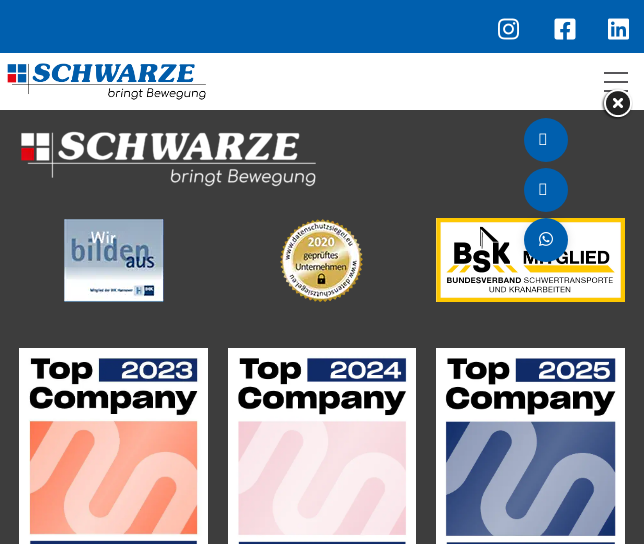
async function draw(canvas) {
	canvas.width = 644;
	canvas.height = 544;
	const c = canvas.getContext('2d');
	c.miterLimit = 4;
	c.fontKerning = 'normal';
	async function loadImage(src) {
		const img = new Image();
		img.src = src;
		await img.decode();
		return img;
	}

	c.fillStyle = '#fff';
	c.fillRect(0, 0, 644, 544);
	c.fillStyle = '#005fae';
	c.fillRect(0, 0, 644, 53);
	c.drawImage(await loadImage('img1.png'), 498, 18, 21, 22);
	c.drawImage(await loadImage('img2.png'), 554, 18, 22, 22);
	c.drawImage(await loadImage('img3.png'), 608, 18, 21, 22);
	c.drawImage(await loadImage('img4.png'), 7, 63, 199, 37);
	for (const [x, y, w, h, color] of [
		[604, 90, 24, 2, '#575659'],
		[604, 72, 24, 2, '#575659'],
		[604, 81, 24, 2, '#575659'],
		[0, 110, 644, 434, '#3d3d3d'],
	]) {
		c.fillStyle = color;
		c.fillRect(x, y, w, h);
	}
	c.drawImage(await loadImage('img5.png'), 601, 88, 32, 32);
	c.fillStyle = '#005fae';
	c.beginPath();
	c.arc(546, 140, 22, 0, 2 * Math.PI);
	c.fill();
	c.drawImage(await loadImage('img6.png'), 539, 133, 8, 12);
	c.beginPath();
	c.arc(546, 190, 22, 0, 2 * Math.PI);
	c.fill();
	c.drawImage(await loadImage('img6.png'), 539, 183, 8, 12);
	c.drawImage(await loadImage('img11.png'), 436, 218, 189, 84);
	c.fillStyle = '#0000001f';
	c.filter = 'blur(4px)';
	c.beginPath();
	c.roundRect(524, 219, 44, 44, 22);
	c.fill();
	c.filter = 'none';
	c.fillStyle = '#005fae';
	c.beginPath();
	c.arc(546, 240, 22, 0, 2 * Math.PI);
	c.fill();
	c.drawImage(await loadImage('img7.png'), 539, 232, 14, 14);
	c.drawImage(await loadImage('img8.png'), 21, 131, 295, 56);
	c.drawImage(await loadImage('img9.png'), 64, 219, 100, 83);
	c.drawImage(await loadImage('img10.png'), 280, 219, 83, 83);
	c.drawImage(await loadImage('img12.png'), 19, 348, 189, 196);
	c.drawImage(await loadImage('img13.png'), 228, 348, 188, 196);
	c.drawImage(await loadImage('img14.png'), 436, 348, 189, 196);
}

draw(document.querySelector('canvas'));
